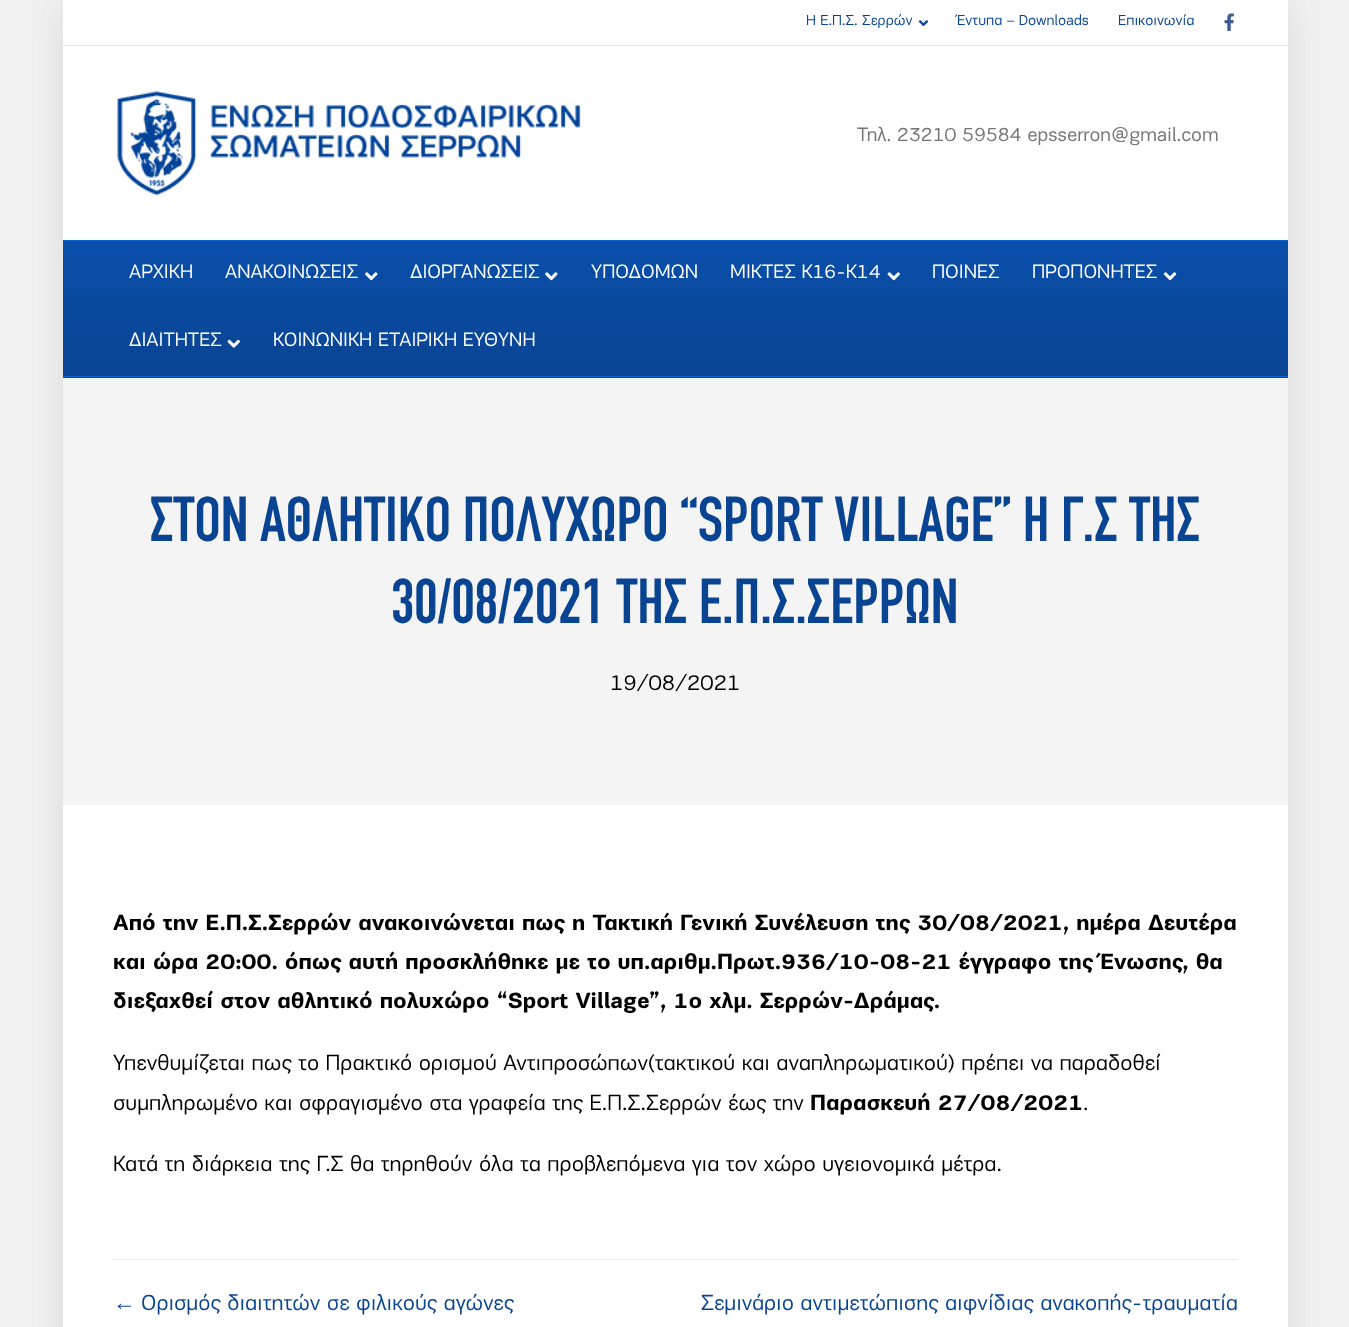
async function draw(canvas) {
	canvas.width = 1349;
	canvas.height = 1327;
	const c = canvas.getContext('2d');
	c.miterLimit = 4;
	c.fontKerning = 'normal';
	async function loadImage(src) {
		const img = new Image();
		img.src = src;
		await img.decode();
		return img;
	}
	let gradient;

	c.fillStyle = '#f2f2f2';
	c.fillRect(0, 0, 1349, 1327);
	c.fillStyle = '#d9d9d9';
	c.filter = 'blur(19px)';
	c.beginPath();
	c.rect(63, 0, 1225, 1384);
	c.fill();
	c.filter = 'none';
	c.fillStyle = '#fff';
	c.fillRect(63, 0, 1225, 45);
	c.fillStyle = '#e6e6e6';
	c.fillRect(63, 45, 1225, 1);
	c.font = '15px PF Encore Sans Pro';
	c.fillStyle = '#094493';
	c.fillText('Η Ε.Π.Σ. Σερρών', 806, 25);
	c.drawImage(await loadImage('img1.png'), 918, 20, 11, 7);
	c.fillText('Έντυπα – Downloads', 957, 25);
	c.fillText('Επικοινωνία', 1118, 25);
	c.drawImage(await loadImage('img2.png'), 1224, 13, 10, 18);
	c.fillStyle = '#fff';
	c.fillRect(63, 46, 1225, 194);
	c.drawImage(await loadImage('img3.png'), 117, 91, 464, 105);
	c.font = '20px PF Encore Sans Pro';
	c.fillStyle = '#757575';
	c.fillText('Τηλ. 23210 59584 epsserron@gmail.com', 857, 141);
	gradient = c.createLinearGradient(675, 241, 675, 376);
	gradient.addColorStop(0, '#0a4fab');
	gradient.addColorStop(1, '#094493');
	c.fillStyle = gradient;
	c.fillRect(63, 241, 1225, 135);
	gradient = c.createLinearGradient(675, 376, 675, 511);
	gradient.addColorStop(0, '#0a4fab');
	gradient.addColorStop(1, '#094493');
	c.fillStyle = gradient;
	c.fillRect(63, 377, 1225, 1);
	c.fillStyle = '#0d61d1';
	c.fillRect(63, 240, 1225, 1);
	c.fillRect(63, 376, 1225, 1);
	c.fillStyle = '#fff';
	c.fillText('ΑΡΧΙΚΗ', 129, 278);
	c.fillText('ΑΝΑΚΟΙΝΩΣΕΙΣ', 225, 278);
	c.drawImage(await loadImage('img4.png'), 365, 272, 13, 9);
	c.fillText('ΔΙΟΡΓΑΝΩΣΕΙΣ', 410, 278);
	c.drawImage(await loadImage('img4.png'), 545, 272, 13, 9);
	c.fillText('ΥΠΟΔΟΜΩΝ', 591, 278);
	c.fillText('ΜΙΚΤΕΣ Κ16-Κ14', 730, 278);
	c.drawImage(await loadImage('img5.png'), 887, 272, 13, 9);
	c.fillText('ΠΟΙΝΕΣ', 932, 278);
	c.fillText('ΠΡΟΠΟΝΗΤΕΣ', 1032, 278);
	c.drawImage(await loadImage('img6.png'), 1163, 272, 14, 9);
	c.fillText('ΔΙΑΙΤΗΤΕΣ', 129, 346);
	c.drawImage(await loadImage('img7.png'), 227, 339, 13, 9);
	c.fillText('ΚΟΙΝΩΝΙΚΗ ΕΤΑΙΡΙΚΗ ΕΥΘΥΝΗ', 273, 346);
	c.fillRect(63, 805, 1225, 522);
	c.fillStyle = '#f4f4f4';
	c.fillRect(63, 378, 1225, 427);
	c.font = '62.5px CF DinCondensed';
	c.fillStyle = '#094493';
	c.fillText('ΣΤΟΝ ΑΘΛΗΤΙΚΟ ΠΟΛΥΧΩΡΟ “SPORT VILLAGE” Η Γ.Σ ΤΗΣ', 150, 541);
	c.fillText('30/08/2021 ΤΗΣ Ε.Π.Σ.ΣΕΡΡΩΝ', 391, 623);
	c.font = '22.5px PF Encore Sans Pro';
	c.fillStyle = '#000';
	c.fillText('19/08/2021', 610, 690);
	c.font = 'bold 22.5px PF Encore Sans Pro';
	for (const [text, x, y] of [
		['Από την Ε.Π.Σ.Σερρών ανακοινώνεται πως η Τακτική Γενική Συνέλευση της 30/08/2021, ημέρα Δευτέρα', 113, 930],
		['και ώρα 20:00. όπως αυτή προσκλήθηκε με το υπ.αριθμ.Πρωτ.936/10-08-21 έγγραφο της Ένωσης, θα', 113, 969],
		['διεξαχθεί στον αθλητικό πολυχώρο “Sport Village”, 1ο χλμ. Σερρών-Δράμας.', 113, 1008],
	]) {
		c.fillText(text, x, y);
	}
	c.font = '22.5px PF Encore Sans Pro';
	c.fillText('Υπενθυμίζεται πως το Πρακτικό ορισμού Αντιπροσώπων(τακτικού και αναπληρωματικού) πρέπει να παραδοθεί', 113, 1070);
	c.fillText('συμπληρωμένο και σφραγισμένο στα γραφεία της Ε.Π.Σ.Σερρών έως την', 113, 1110);
	c.font = 'bold 22.5px PF Encore Sans Pro';
	c.fillText('Παρασκευή 27/08/2021', 810, 1110);
	c.font = '22.5px PF Encore Sans Pro';
	c.fillText('.', 1083, 1110);
	c.fillText('Κατά τη διάρκεια της Γ.Σ θα τηρηθούν όλα τα προβλεπόμενα για τον χώρο υγειονομικά μέτρα.', 113, 1171);
	c.fillStyle = '#e8e8e8';
	c.fillRect(113, 1259, 1125, 1);
	c.font = '22.5px Liberation Sans';
	c.fillStyle = '#094493';
	c.fillText('←', 113, 1310);
	c.font = '22.5px PF Encore Sans Pro';
	c.fillText('Ορισμός διαιτητών σε φιλικούς αγώνες', 141, 1310);
	c.fillText('Σεμινάριο αντιμετώπισης αιφνίδιας ανακοπής-τραυματία', 701, 1310);
}

draw(document.querySelector('canvas'));
